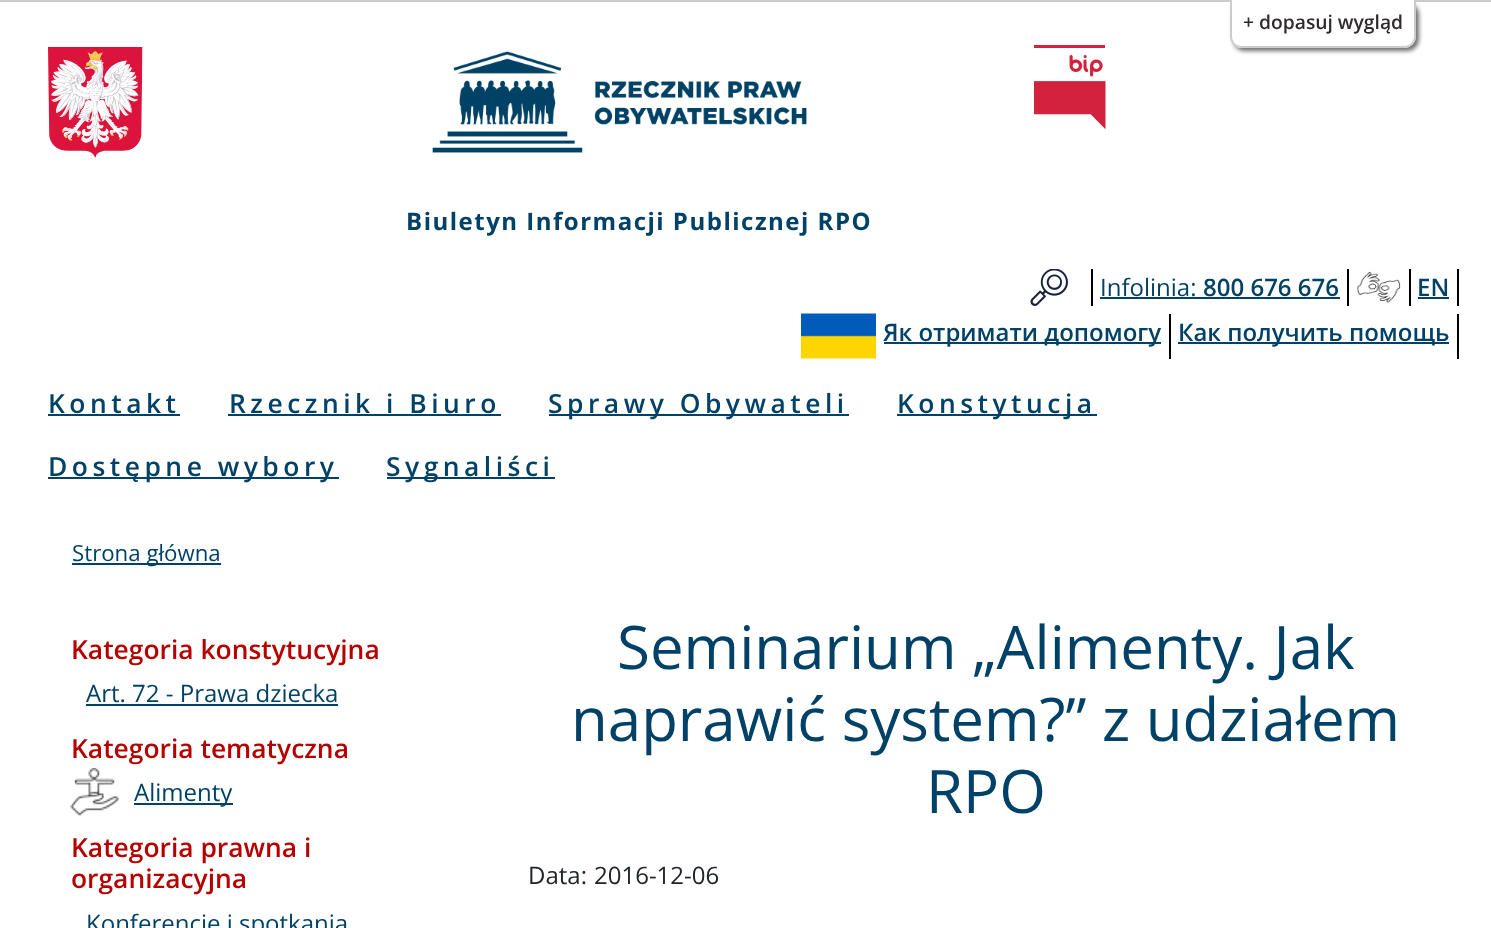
async function draw(canvas) {
	canvas.width = 1491;
	canvas.height = 928;
	const c = canvas.getContext('2d');
	c.miterLimit = 4;
	c.fontKerning = 'normal';
	async function loadImage(src) {
		const img = new Image();
		img.src = src;
		await img.decode();
		return img;
	}

	c.fillStyle = '#fff';
	c.fillRect(0, 0, 1491, 928);
	c.fillStyle = '#ccc';
	c.fillRect(0, 0, 1491, 2);
	c.fillStyle = '#6f6f6f';
	c.filter = 'blur(2px)';
	c.beginPath();
	c.roundRect(1233, 3, 186, 48, 12);
	c.fill();
	c.filter = 'none';
	c.fillStyle = '#fff';
	c.beginPath();
	c.roundRect(1230, 0, 186, 48, [0, 0, 12, 12]);
	c.fill();
	c.fillStyle = '#ccc';
	c.beginPath();
	c.moveTo(1230, 0);
	c.lineTo(1416, 0);
	c.lineTo(1416, 36);
	c.bezierCurveTo(1416, 43, 1411, 48, 1404, 48);
	c.lineTo(1242, 48);
	c.bezierCurveTo(1235, 48, 1230, 43, 1230, 36);
	c.closePath();
	c.moveTo(1232, 0);
	c.lineTo(1414, 0);
	c.lineTo(1414, 36);
	c.bezierCurveTo(1414, 42, 1410, 46, 1404, 46);
	c.lineTo(1242, 46);
	c.bezierCurveTo(1236, 46, 1232, 42, 1232, 36);
	c.closePath();
	c.fill('evenodd');
	c.font = '600 19.25px Open Sans';
	c.fillStyle = '#2f2b2a';
	c.fillText('+ dopasuj wygląd', 1243, 29);
	c.drawImage(await loadImage('img1.png'), 48, 47, 95, 111);
	c.drawImage(await loadImage('img2.png'), 432, 51, 375, 102);
	c.drawImage(await loadImage('img3.png'), 1034, 45, 72, 85);
	c.letterSpacing = '1.5px';
	c.font = 'bold 24px Open Sans';
	c.fillStyle = '#004167';
	c.fillText('Biuletyn Informacji Publicznej RPO', 406, 230);
	c.fillStyle = '#000';
	c.fillRect(1091, 269, 2, 37);
	c.drawImage(await loadImage('img4.png'), 1030, 269, 38, 37);
	c.fillRect(1347, 269, 2, 37);
	c.letterSpacing = '0px';
	c.font = '24px Open Sans';
	c.fillStyle = '#004167';
	c.fillText('Infolinia:', 1100, 296);
	c.fillRect(1100, 297, 240, 2);
	c.font = '600 24px Open Sans';
	c.fillText('800 676 676', 1203, 296);
	c.fillStyle = '#000';
	c.fillRect(1409, 269, 2, 37);
	c.drawImage(await loadImage('img5.png'), 1357, 271, 44, 32);
	c.fillRect(1457, 269, 2, 37);
	c.fillStyle = '#004167';
	c.fillText('EN', 1417, 296);
	c.fillRect(1418, 297, 31, 2);
	c.drawImage(await loadImage('img6.png'), 801, 313, 75, 46);
	c.fillStyle = '#000';
	c.fillRect(1169, 314, 2, 45);
	c.fillStyle = '#004167';
	c.fillRect(884, 342, 277, 2);
	c.fillText('Як отримати допомогу', 883, 341);
	c.fillStyle = '#000';
	c.fillRect(1457, 314, 2, 45);
	c.fillStyle = '#004167';
	c.fillRect(1178, 342, 271, 2);
	c.fillText('Как получить помощь', 1178, 341);
	c.letterSpacing = '4.5px';
	c.font = '600 26.4px Open Sans';
	c.fillText('Kontakt', 48, 413);
	c.fillRect(48, 414, 132, 2);
	c.fillText('Rzecznik i Biuro', 229, 413);
	c.fillRect(228, 414, 273, 2);
	c.fillRect(549, 414, 300, 2);
	c.fillText('Sprawy Obywateli', 548, 413);
	c.fillRect(897, 414, 200, 2);
	c.fillText('Konstytucja', 897, 413);
	c.fillRect(48, 477, 291, 2);
	c.fillText('Dostępne wybory', 48, 476);
	c.fillRect(387, 477, 168, 2);
	c.fillText('Sygnaliści', 386, 476);
	c.fillRect(72, 563, 149, 2);
	c.letterSpacing = '0px';
	c.font = '22.25px Open Sans';
	c.fillText('Strona główna', 72, 561);
	c.font = '600 26.4px Open Sans';
	c.fillStyle = '#b60000';
	c.fillText('Kategoria konstytucyjna', 71, 659);
	c.font = '24px Open Sans';
	c.fillStyle = '#004167';
	c.fillText('Art. 72 - Prawa dziecka', 86, 702);
	c.fillRect(86, 704, 252, 2);
	c.font = '600 26.4px Open Sans';
	c.fillStyle = '#b60000';
	c.fillText('Kategoria tematyczna', 71, 758);
	c.drawImage(await loadImage('img7.png'), 70, 768, 49, 48);
	c.fillStyle = '#004167';
	c.fillRect(134, 803, 99, 2);
	c.font = '24px Open Sans';
	c.fillText('Alimenty', 134, 801);
	c.font = '600 26.4px Open Sans';
	c.fillStyle = '#b60000';
	c.fillText('Kategoria prawna i', 71, 857);
	c.fillText('organizacyjna', 71, 888);
	c.font = '24px Open Sans';
	c.fillStyle = '#004167';
	c.fillText('Konferencje i spotkania', 86, 932);
	c.font = '60px Open Sans';
	for (const [text, x, y] of [
		['Seminarium „Alimenty. Jak', 617, 669],
		['naprawić system?” z udziałem', 571, 741],
		['RPO', 926, 813],
	]) {
		c.fillText(text, x, y);
	}
	c.font = '24px Open Sans';
	c.fillStyle = '#212529';
	c.fillText('Data:', 528, 884);
	c.fillText('2016-12-06', 594, 884);
}

draw(document.querySelector('canvas'));
